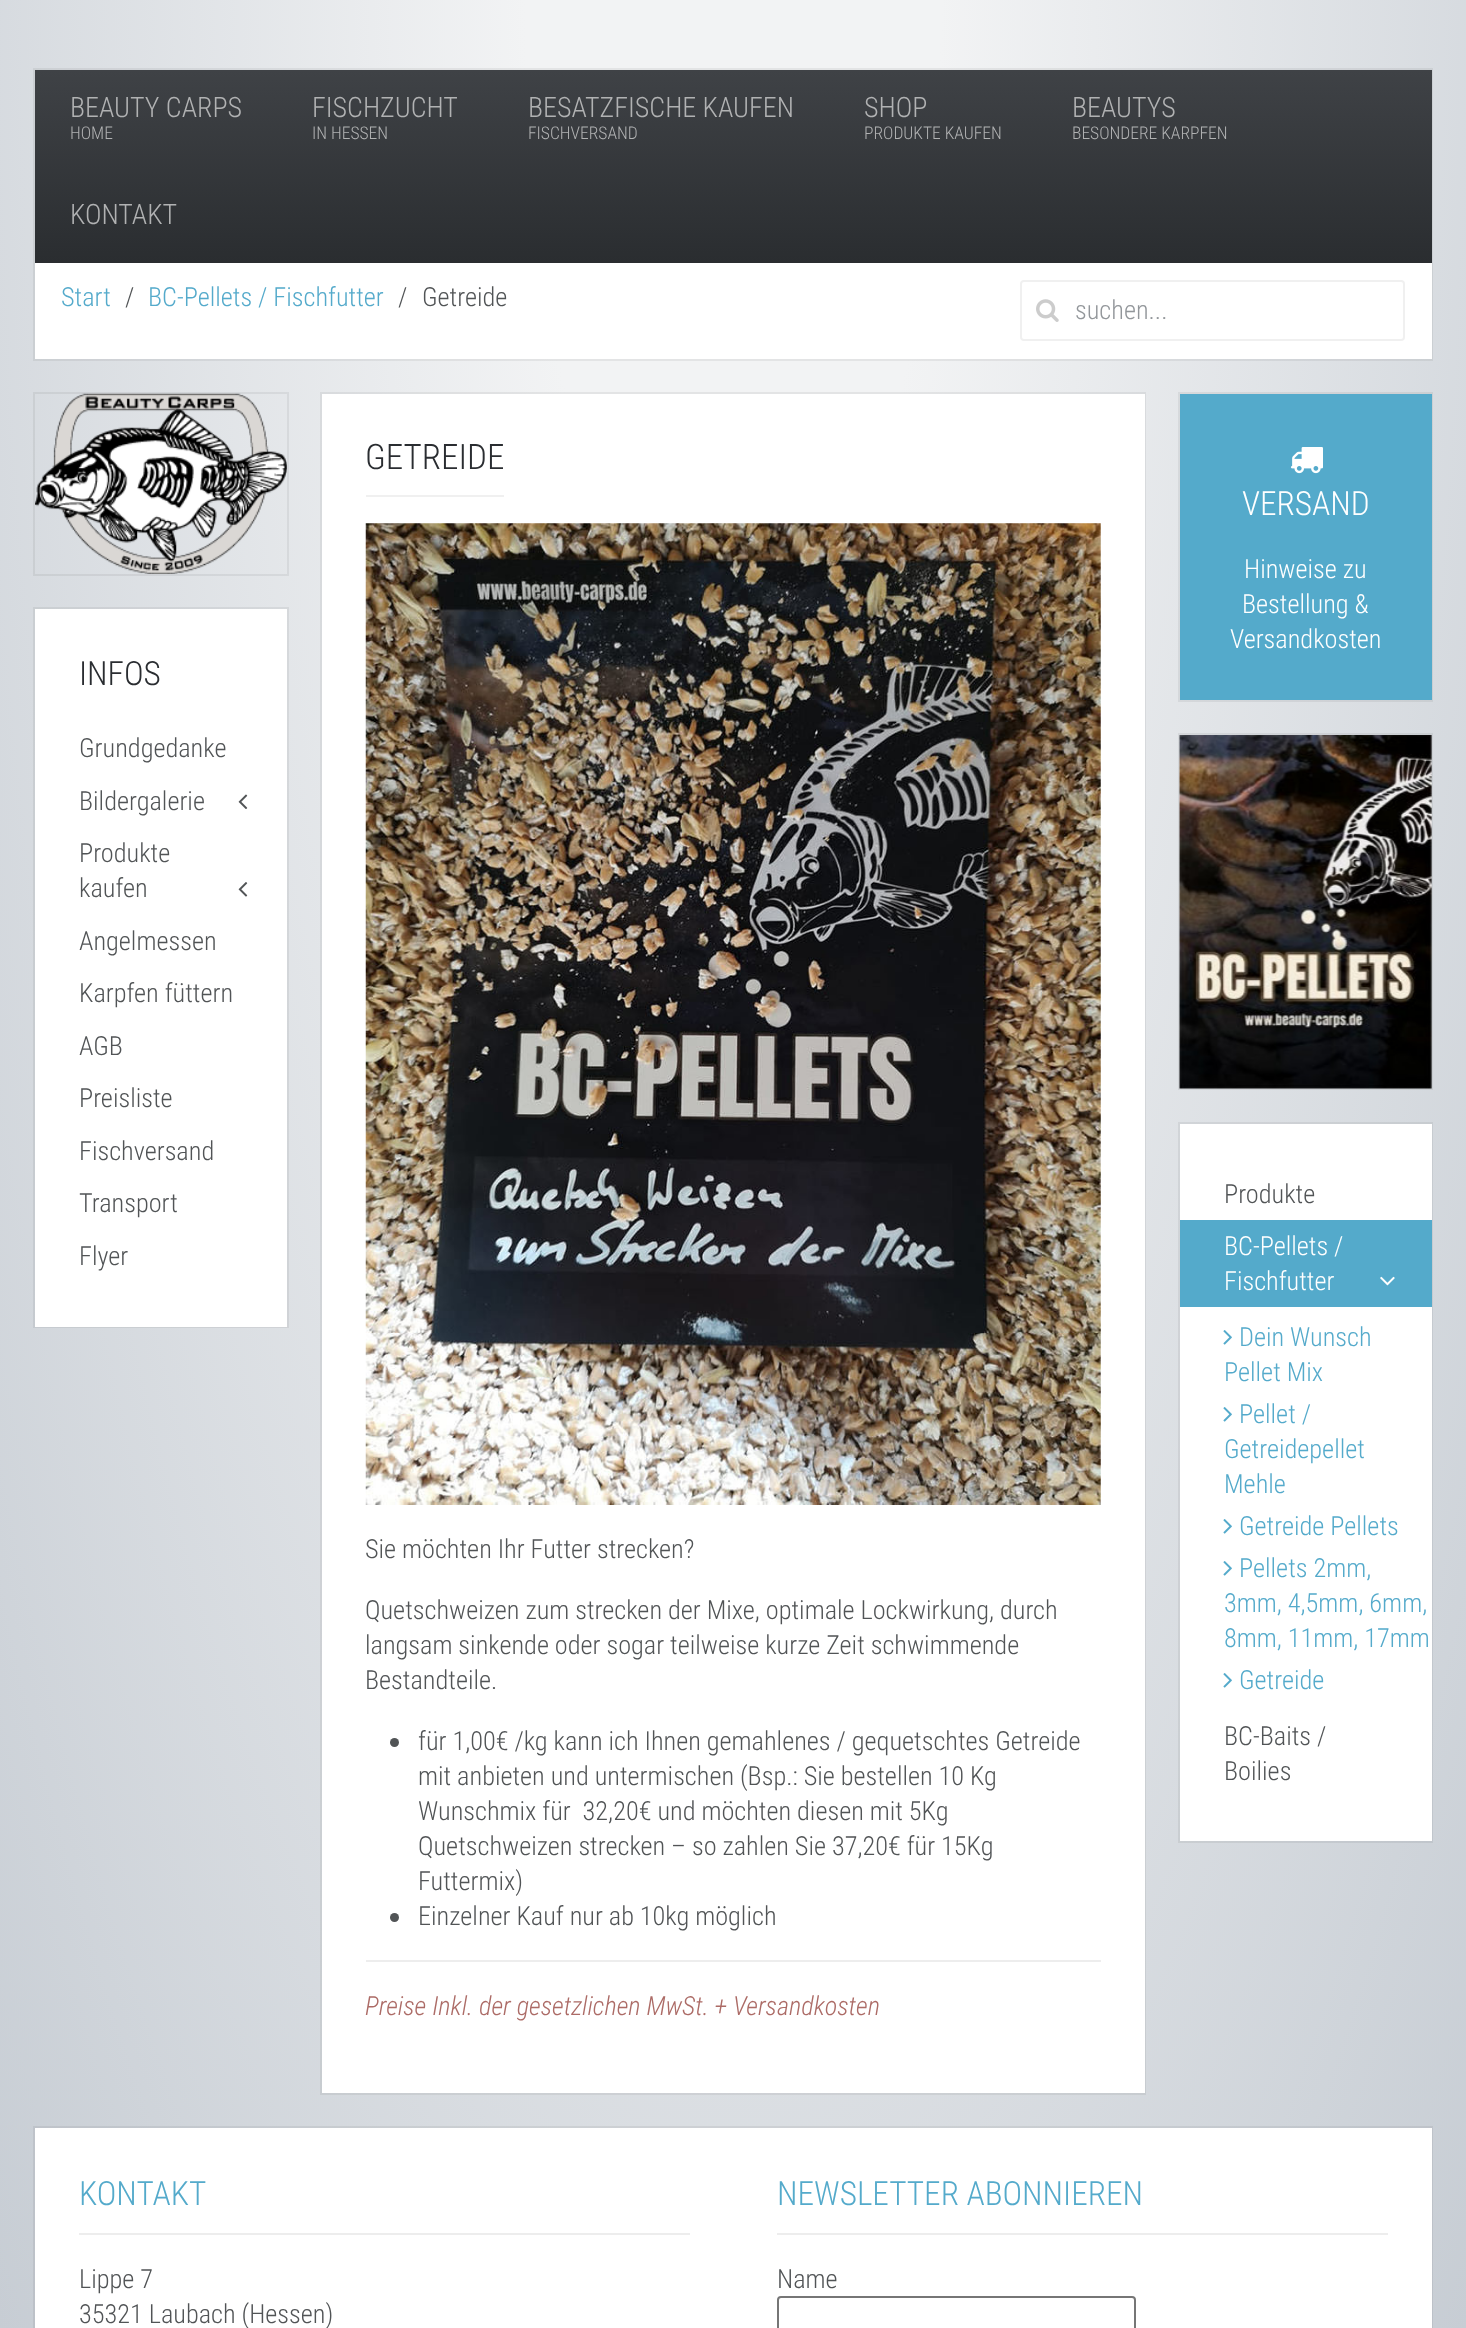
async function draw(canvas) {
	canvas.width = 1466;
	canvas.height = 2328;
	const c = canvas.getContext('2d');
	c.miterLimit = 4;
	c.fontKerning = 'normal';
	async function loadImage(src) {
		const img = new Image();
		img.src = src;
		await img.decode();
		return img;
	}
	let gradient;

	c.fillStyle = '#fff';
	c.fillRect(0, 0, 1466, 2328);
	gradient = c.createRadialGradient(733, 0, 0, 733, 0, 1037);
	gradient.addColorStop(0.2, '#f2f3f4');
	gradient.addColorStop(1, '#c7cdd4');
	c.fillStyle = gradient;
	c.beginPath();
	c.rect(0, 0, 1466, 2328);
	c.save();
	c.clip();
	c.scale(1, 3294 / 1037);
	c.fillRect(0, 0, 1466, 733);
	c.restore();
	c.strokeStyle = '#0000000f';
	c.lineWidth = 2;
	c.strokeRect(34, 69, 1398, 291);
	c.fillStyle = '#fff';
	c.fillRect(35, 263, 1397, 96);
	gradient = c.createLinearGradient(733, 70, 733, 263);
	gradient.addColorStop(0, '#3f4246');
	gradient.addColorStop(1, '#2a2d30');
	c.fillStyle = gradient;
	c.fillRect(35, 70, 1397, 193);
	c.font = '300 28px Roboto Condensed';
	c.fillStyle = '#b1b2b3';
	c.fillText('BEAUTY CARPS', 70, 117);
	c.font = '300 17.5px Roboto Condensed';
	c.fillText('HOME', 70, 139);
	c.font = '300 28px Roboto Condensed';
	c.fillText('FISCHZUCHT', 312, 117);
	c.font = '300 17.5px Roboto Condensed';
	c.fillText('IN HESSEN', 312, 139);
	c.font = '300 28px Roboto Condensed';
	c.fillText('BESATZFISCHE KAUFEN', 528, 117);
	c.font = '300 17.5px Roboto Condensed';
	c.fillText('FISCHVERSAND', 528, 139);
	c.font = '300 28px Roboto Condensed';
	c.fillText('SHOP', 864, 117);
	c.font = '300 17.5px Roboto Condensed';
	c.fillText('PRODUKTE KAUFEN', 864, 139);
	c.font = '300 28px Roboto Condensed';
	c.fillText('BEAUTYS', 1072, 117);
	c.font = '300 17.5px Roboto Condensed';
	c.fillText('BESONDERE KARPFEN', 1072, 139);
	c.font = '300 28px Roboto Condensed';
	c.fillText('KONTAKT', 70, 224);
	c.font = '300 26.25px Roboto Condensed';
	c.fillStyle = '#54aacb';
	c.fillText('Start', 61, 306);
	c.fillStyle = '#515456';
	c.fillText('/', 125, 306);
	c.fillStyle = '#54aacb';
	c.fillText('BC-Pellets / Fischfutter', 148, 306);
	c.fillStyle = '#515456';
	c.fillText('/', 398, 306);
	c.fillText('Getreide', 422, 306);
	c.beginPath();
	c.roundRect(1021, 281, 383, 59, 3);
	c.strokeStyle = '#f0f0f0';
	c.stroke();
	c.drawImage(await loadImage('img1.png'), 1036, 299, 23, 23);
	c.fillStyle = '#92969a';
	c.fillText('suchen...', 1075, 319);
	c.strokeStyle = '#0000000f';
	c.strokeRect(34, 393, 254, 182);
	c.drawImage(await loadImage('img2.png'), 35, 393, 252, 181);
	c.strokeRect(34, 608, 254, 719);
	c.fillStyle = '#fff';
	c.fillRect(35, 609, 252, 718);
	c.font = '300 33.25px Roboto Condensed';
	c.fillStyle = '#2a2d31';
	c.fillText('INFOS', 79, 685);
	c.font = '300 26.25px Roboto Condensed';
	c.fillStyle = '#515456';
	c.fillText('Grundgedanke', 79, 757);
	c.fillText('Bildergalerie', 79, 810);
	c.drawImage(await loadImage('img3.png'), 238, 794, 10, 15);
	c.fillText('Produkte', 79, 862);
	c.fillText('kaufen', 79, 897);
	c.drawImage(await loadImage('img4.png'), 238, 882, 10, 15);
	for (const [text, x, y] of [
		['Angelmessen', 79, 950],
		['Karpfen füttern', 79, 1002],
		['AGB', 79, 1055],
		['Preisliste', 79, 1107],
		['Fischversand', 79, 1160],
		['Transport', 79, 1212],
		['Flyer', 79, 1265],
	]) {
		c.fillText(text, x, y);
	}
	c.strokeRect(321, 393, 824, 1701);
	c.fillStyle = '#fff';
	c.fillRect(322, 394, 823, 1699);
	c.fillStyle = '#f0f0f0';
	c.fillRect(366, 495, 138, 2);
	c.font = '300 35px Roboto Condensed';
	c.fillStyle = '#2a2d31';
	c.fillText('GETREIDE', 365, 469);
	c.drawImage(await loadImage('img5.png'), 365, 523, 736, 982);
	c.font = '300 26.25px Roboto Condensed';
	c.fillStyle = '#515456';
	for (const [text, x, y] of [
		['Sie möchten Ihr Futter strecken?', 365, 1558],
		['Quetschweizen zum strecken der Mixe, optimale Lockwirkung, durch', 365, 1619],
		['langsam sinkende oder sogar teilweise kurze Zeit schwimmende', 365, 1654],
		['Bestandteile.', 365, 1689],
	]) {
		c.fillText(text, x, y);
	}
	c.beginPath();
	c.arc(394.5, 1742.5, 4.5, 0, 2 * Math.PI);
	c.fill();
	for (const [text, x, y] of [
		['für 1,00€ /kg kann ich Ihnen gemahlenes / gequetschtes Getreide', 418, 1750],
		['mit anbieten und untermischen (Bsp.: Sie bestellen 10 Kg', 418, 1785],
		['Wunschmix für  32,20€ und möchten diesen mit 5Kg', 418, 1820],
		['Quetschweizen strecken – so zahlen Sie 37,20€ für 15Kg', 418, 1855],
		['Futtermix)', 418, 1890],
	]) {
		c.fillText(text, x, y);
	}
	c.beginPath();
	c.arc(394.5, 1917.5, 4.5, 0, 2 * Math.PI);
	c.fill();
	c.fillText('Einzelner Kauf nur ab 10kg möglich', 418, 1925);
	c.fillStyle = '#ededed';
	c.fillRect(366, 1960, 735, 2);
	c.font = 'italic 300 26.25px Roboto Condensed';
	c.fillStyle = '#ac6b66';
	c.fillText('Preise Inkl. der gesetzlichen MwSt. + Versandkosten', 365, 2015);
	c.strokeRect(1179, 393, 253, 308);
	c.fillStyle = '#54aacb';
	c.fillRect(1180, 394, 252, 306);
	c.drawImage(await loadImage('img6.png'), 1290, 447, 33, 27);
	c.font = '300 33.25px Roboto Condensed';
	c.fillStyle = '#fff';
	c.fillText('VERSAND', 1242, 515);
	c.font = '300 26.25px Roboto Condensed';
	for (const [text, x, y] of [
		['Hinweise zu', 1244, 578],
		['Bestellung &', 1242, 613],
		['Versandkosten', 1230, 648],
	]) {
		c.fillText(text, x, y);
	}
	c.strokeRect(1179, 734, 253, 355);
	c.drawImage(await loadImage('img7.png'), 1179, 735, 253, 354);
	c.strokeRect(1179, 1123, 253, 719);
	c.fillRect(1180, 1124, 252, 717);
	c.fillStyle = '#515456';
	c.fillText('Produkte', 1224, 1203);
	c.fillStyle = '#54aacb';
	c.fillRect(1180, 1220, 252, 87);
	c.fillStyle = '#fff';
	c.fillText('BC-Pellets /', 1224, 1255);
	c.fillText('Fischfutter', 1224, 1290);
	c.drawImage(await loadImage('img8.png'), 1380, 1276, 15, 10);
	c.drawImage(await loadImage('img9.png'), 1223, 1330, 9, 15);
	c.fillStyle = '#54aacb';
	c.fillText('Dein Wunsch', 1239, 1346);
	c.fillText('Pellet Mix', 1224, 1381);
	c.drawImage(await loadImage('img9.png'), 1223, 1407, 9, 15);
	for (const [text, x, y] of [
		['Pellet /', 1239, 1423],
		['Getreidepellet', 1224, 1458],
		['Mehle', 1224, 1493],
	]) {
		c.fillText(text, x, y);
	}
	c.drawImage(await loadImage('img9.png'), 1223, 1519, 9, 15);
	c.fillText('Getreide Pellets', 1239, 1535);
	c.drawImage(await loadImage('img9.png'), 1223, 1561, 9, 15);
	for (const [text, x, y] of [
		['Pellets 2mm,', 1239, 1577],
		['3mm, 4,5mm, 6mm,', 1224, 1612],
		['8mm, 11mm, 17mm', 1224, 1647],
	]) {
		c.fillText(text, x, y);
	}
	c.drawImage(await loadImage('img9.png'), 1223, 1673, 9, 15);
	c.fillText('Getreide', 1239, 1689);
	c.fillStyle = '#515456';
	c.fillText('BC-Baits /', 1224, 1745);
	c.fillText('Boilies', 1224, 1780);
	c.strokeRect(34, 2127, 1398, 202);
	c.fillStyle = '#fff';
	c.fillRect(35, 2128, 1397, 200);
	c.fillStyle = '#ededed';
	c.fillRect(79, 2233, 611, 2);
	c.font = '300 33.25px Roboto Condensed';
	c.fillStyle = '#54aacb';
	c.fillText('KONTAKT', 79, 2205);
	c.font = '300 26.25px Roboto Condensed';
	c.fillStyle = '#515456';
	c.fillText('Lippe 7', 79, 2288);
	c.fillText('35321 Laubach (Hessen)', 79, 2323);
	c.fillStyle = '#ededed';
	c.fillRect(777, 2233, 611, 2);
	c.font = '300 33.25px Roboto Condensed';
	c.fillStyle = '#54aacb';
	c.fillText('NEWSLETTER ABONNIEREN', 777, 2205);
	c.font = '300 26.25px Roboto Condensed';
	c.fillStyle = '#515456';
	c.fillText('Name', 777, 2288);
	c.beginPath();
	c.roundRect(778, 2297, 357, 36, 3);
	c.strokeStyle = '#767676';
	c.stroke();
}

draw(document.querySelector('canvas'));
